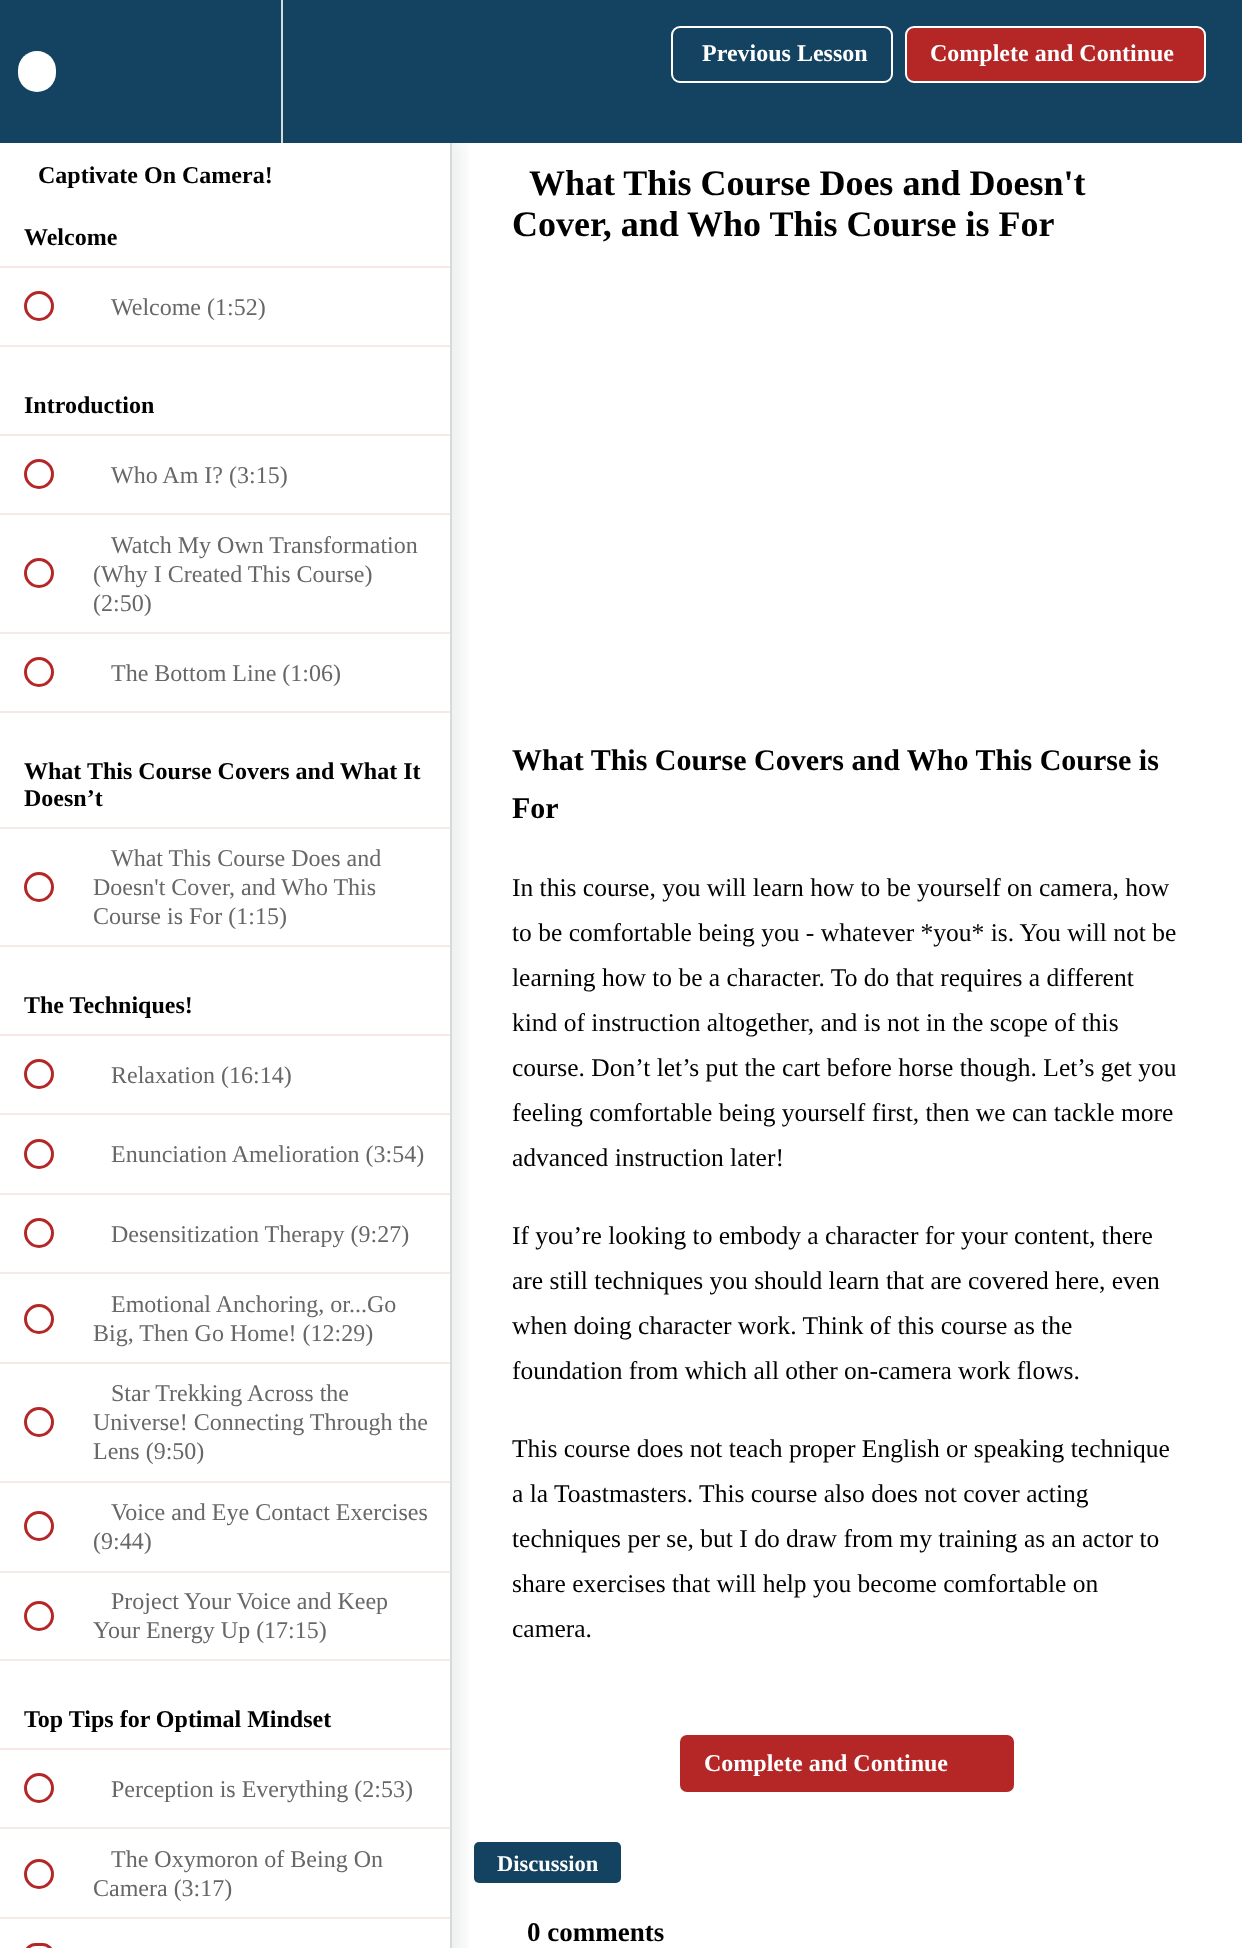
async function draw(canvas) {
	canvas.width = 1242;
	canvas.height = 1948;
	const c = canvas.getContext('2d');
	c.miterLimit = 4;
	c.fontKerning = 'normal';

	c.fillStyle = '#fff';
	c.fillRect(0, 0, 1242, 1948);
	c.fillStyle = '#134361';
	c.beginPath();
	c.roundRect(474, 1842, 147, 41, 5);
	c.fill();
	c.save();
	c.beginPath();
	c.rect(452, 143, 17, 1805);
	c.clip();
	c.fillStyle = '#20272d26';
	c.filter = 'blur(15px)';
	c.beginPath();
	c.rect(0, 134, 452, 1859);
	c.fill();
	c.filter = 'none';
	c.restore();
	c.fillRect(0, 0, 1242, 143);
	c.fillStyle = '#fff';
	c.beginPath();
	c.roundRect(18, 51, 38, 41, 19);
	c.fill();
	c.fillStyle = '#d7dadb';
	c.fillRect(281, 0, 2, 143);
	c.beginPath();
	c.roundRect(672, 27, 220, 55, 8);
	c.strokeStyle = '#fff';
	c.lineWidth = 2;
	c.stroke();
	c.font = 'bold 24px Liberation Serif';
	c.fillStyle = '#fff';
	c.fillText('Previous Lesson', 702, 61);
	c.fillStyle = '#b52626';
	c.beginPath();
	c.roundRect(906, 27, 299, 55, 8);
	c.fill();
	c.stroke();
	c.fillStyle = '#fff';
	c.fillText('Complete and Continue', 930, 61);
	c.fillStyle = '#d7dadb';
	c.fillRect(450, 143, 2, 1805);
	c.fillStyle = '#000';
	c.fillText('Captivate On Camera!', 38, 183);
	c.fillStyle = '#f8e9e9';
	c.fillRect(0, 266, 450, 2);
	c.fillStyle = '#000';
	c.fillText('Welcome', 24, 245);
	c.fillStyle = '#f8e9e9';
	c.fillRect(0, 345, 450, 2);
	c.beginPath();
	c.arc(39, 306, 13.5, 0, 2 * Math.PI);
	c.strokeStyle = '#b52626';
	c.lineWidth = 3;
	c.stroke();
	c.font = '24px Liberation Serif';
	c.fillStyle = '#676767';
	c.fillText('Welcome (1:52)', 111, 315);
	c.fillStyle = '#f8e9e9';
	c.fillRect(0, 434, 450, 2);
	c.font = 'bold 24px Liberation Serif';
	c.fillStyle = '#000';
	c.fillText('Introduction', 24, 413);
	c.fillStyle = '#f8e9e9';
	c.fillRect(0, 513, 450, 2);
	c.beginPath();
	c.arc(39, 474, 13.5, 0, 2 * Math.PI);
	c.stroke();
	c.font = '24px Liberation Serif';
	c.fillStyle = '#676767';
	c.fillText('Who Am I? (3:15)', 111, 483);
	c.fillStyle = '#f8e9e9';
	c.fillRect(0, 632, 450, 2);
	c.beginPath();
	c.arc(39, 573, 13.5, 0, 2 * Math.PI);
	c.stroke();
	c.fillStyle = '#676767';
	for (const [text, x, y] of [
		['Watch My Own Transformation', 111, 553],
		['(Why I Created This Course)', 93, 582],
		['(2:50)', 93, 611],
	]) {
		c.fillText(text, x, y);
	}
	c.fillStyle = '#f8e9e9';
	c.fillRect(0, 711, 450, 2);
	c.beginPath();
	c.arc(39, 672, 13.5, 0, 2 * Math.PI);
	c.stroke();
	c.fillStyle = '#676767';
	c.fillText('The Bottom Line (1:06)', 111, 681);
	c.fillStyle = '#f8e9e9';
	c.fillRect(0, 827, 450, 2);
	c.font = 'bold 24px Liberation Serif';
	c.fillStyle = '#000';
	c.fillText('What This Course Covers and What It', 24, 779);
	c.fillText('Doesn’t', 24, 806);
	c.fillStyle = '#f8e9e9';
	c.fillRect(0, 945, 450, 2);
	c.beginPath();
	c.arc(39, 887, 13.5, 0, 2 * Math.PI);
	c.stroke();
	c.font = '24px Liberation Serif';
	c.fillStyle = '#676767';
	for (const [text, x, y] of [
		['What This Course Does and', 111, 866],
		['Doesn\'t Cover, and Who This', 93, 895],
		['Course is For (1:15)', 93, 924],
	]) {
		c.fillText(text, x, y);
	}
	c.fillStyle = '#f8e9e9';
	c.fillRect(0, 1034, 450, 2);
	c.font = 'bold 24px Liberation Serif';
	c.fillStyle = '#000';
	c.fillText('The Techniques!', 24, 1013);
	c.fillStyle = '#f8e9e9';
	c.fillRect(0, 1113, 450, 2);
	c.beginPath();
	c.arc(39, 1074, 13.5, 0, 2 * Math.PI);
	c.stroke();
	c.font = '24px Liberation Serif';
	c.fillStyle = '#676767';
	c.fillText('Relaxation (16:14)', 111, 1083);
	c.fillStyle = '#f8e9e9';
	c.fillRect(0, 1193, 450, 2);
	c.beginPath();
	c.arc(39, 1154, 13.5, 0, 2 * Math.PI);
	c.stroke();
	c.fillStyle = '#676767';
	c.fillText('Enunciation Amelioration (3:54)', 111, 1162);
	c.fillStyle = '#f8e9e9';
	c.fillRect(0, 1272, 450, 2);
	c.beginPath();
	c.arc(39, 1233, 13.5, 0, 2 * Math.PI);
	c.stroke();
	c.fillStyle = '#676767';
	c.fillText('Desensitization Therapy (9:27)', 111, 1242);
	c.fillStyle = '#f8e9e9';
	c.fillRect(0, 1362, 450, 2);
	c.beginPath();
	c.arc(39, 1319, 13.5, 0, 2 * Math.PI);
	c.stroke();
	c.fillStyle = '#676767';
	c.fillText('Emotional Anchoring, or...Go', 111, 1312);
	c.fillText('Big, Then Go Home! (12:29)', 93, 1341);
	c.fillStyle = '#f8e9e9';
	c.fillRect(0, 1481, 450, 2);
	c.beginPath();
	c.arc(39, 1422, 13.5, 0, 2 * Math.PI);
	c.stroke();
	c.fillStyle = '#676767';
	for (const [text, x, y] of [
		['Star Trekking Across the', 111, 1401],
		['Universe! Connecting Through the', 93, 1430],
		['Lens (9:50)', 93, 1459],
	]) {
		c.fillText(text, x, y);
	}
	c.fillStyle = '#f8e9e9';
	c.fillRect(0, 1571, 450, 2);
	c.beginPath();
	c.arc(39, 1526, 13.5, 0, 2 * Math.PI);
	c.stroke();
	c.fillStyle = '#676767';
	c.fillText('Voice and Eye Contact Exercises', 111, 1520);
	c.fillText('(9:44)', 93, 1549);
	c.fillStyle = '#f8e9e9';
	c.fillRect(0, 1659, 450, 2);
	c.beginPath();
	c.arc(39, 1616, 13.5, 0, 2 * Math.PI);
	c.stroke();
	c.fillStyle = '#676767';
	c.fillText('Project Your Voice and Keep', 111, 1609);
	c.fillText('Your Energy Up (17:15)', 93, 1638);
	c.fillStyle = '#f8e9e9';
	c.fillRect(0, 1748, 450, 2);
	c.font = 'bold 24px Liberation Serif';
	c.fillStyle = '#000';
	c.fillText('Top Tips for Optimal Mindset', 24, 1727);
	c.fillStyle = '#f8e9e9';
	c.fillRect(0, 1827, 450, 2);
	c.beginPath();
	c.arc(39, 1788, 13.5, 0, 2 * Math.PI);
	c.stroke();
	c.font = '24px Liberation Serif';
	c.fillStyle = '#676767';
	c.fillText('Perception is Everything (2:53)', 111, 1797);
	c.fillStyle = '#f8e9e9';
	c.fillRect(0, 1917, 450, 2);
	c.beginPath();
	c.arc(39, 1874, 13.5, 0, 2 * Math.PI);
	c.stroke();
	c.fillStyle = '#676767';
	c.fillText('The Oxymoron of Being On', 111, 1867);
	c.fillText('Camera (3:17)', 93, 1896);
	c.beginPath();
	c.roundRect(25.5, 1944.5, 27, 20, 13.5);
	c.stroke();
	c.font = 'bold 36px Liberation Serif';
	c.fillStyle = '#000';
	c.fillText('What This Course Does and Doesn\'t', 529, 195);
	c.fillText('Cover, and Who This Course is For', 512, 236);
	c.font = 'bold 30px Liberation Serif';
	c.fillText('What This Course Covers and Who This Course is', 512, 770);
	c.fillText('For', 512, 818);
	c.font = '25.5px Liberation Serif';
	for (const [text, x, y] of [
		['In this course, you will learn how to be yourself on camera, how', 512, 896],
		['to be comfortable being you - whatever *you* is. You will not be', 512, 941],
		['learning how to be a character. To do that requires a different', 512, 986],
		['kind of instruction altogether, and is not in the scope of this', 512, 1031],
		['course. Don’t let’s put the cart before horse though. Let’s get you', 512, 1076],
		['feeling comfortable being yourself first, then we can tackle more', 512, 1121],
		['advanced instruction later!', 512, 1166],
		['If you’re looking to embody a character for your content, there', 512, 1244],
		['are still techniques you should learn that are covered here, even', 512, 1289],
		['when doing character work. Think of this course as the', 512, 1334],
		['foundation from which all other on-camera work flows.', 512, 1379],
		['This course does not teach proper English or speaking technique', 512, 1457],
		['a la Toastmasters. This course also does not cover acting', 512, 1502],
		['techniques per se, but I do draw from my training as an actor to', 512, 1547],
		['share exercises that will help you become comfortable on', 512, 1592],
		['camera.', 512, 1637],
	]) {
		c.fillText(text, x, y);
	}
	c.fillStyle = '#b52626';
	c.beginPath();
	c.roundRect(679, 1734, 336, 59, 8);
	c.fill();
	c.strokeStyle = '#fff';
	c.lineWidth = 2;
	c.stroke();
	c.font = 'bold 24px Liberation Serif';
	c.fillStyle = '#fff';
	c.fillText('Complete and Continue', 704, 1771);
	c.font = 'bold 22.5px Liberation Serif';
	c.fillText('Discussion', 497, 1871);
	c.font = 'bold 27px Liberation Serif';
	c.fillStyle = '#000';
	c.fillText('0 comments', 527, 1941);
}

draw(document.querySelector('canvas'));
